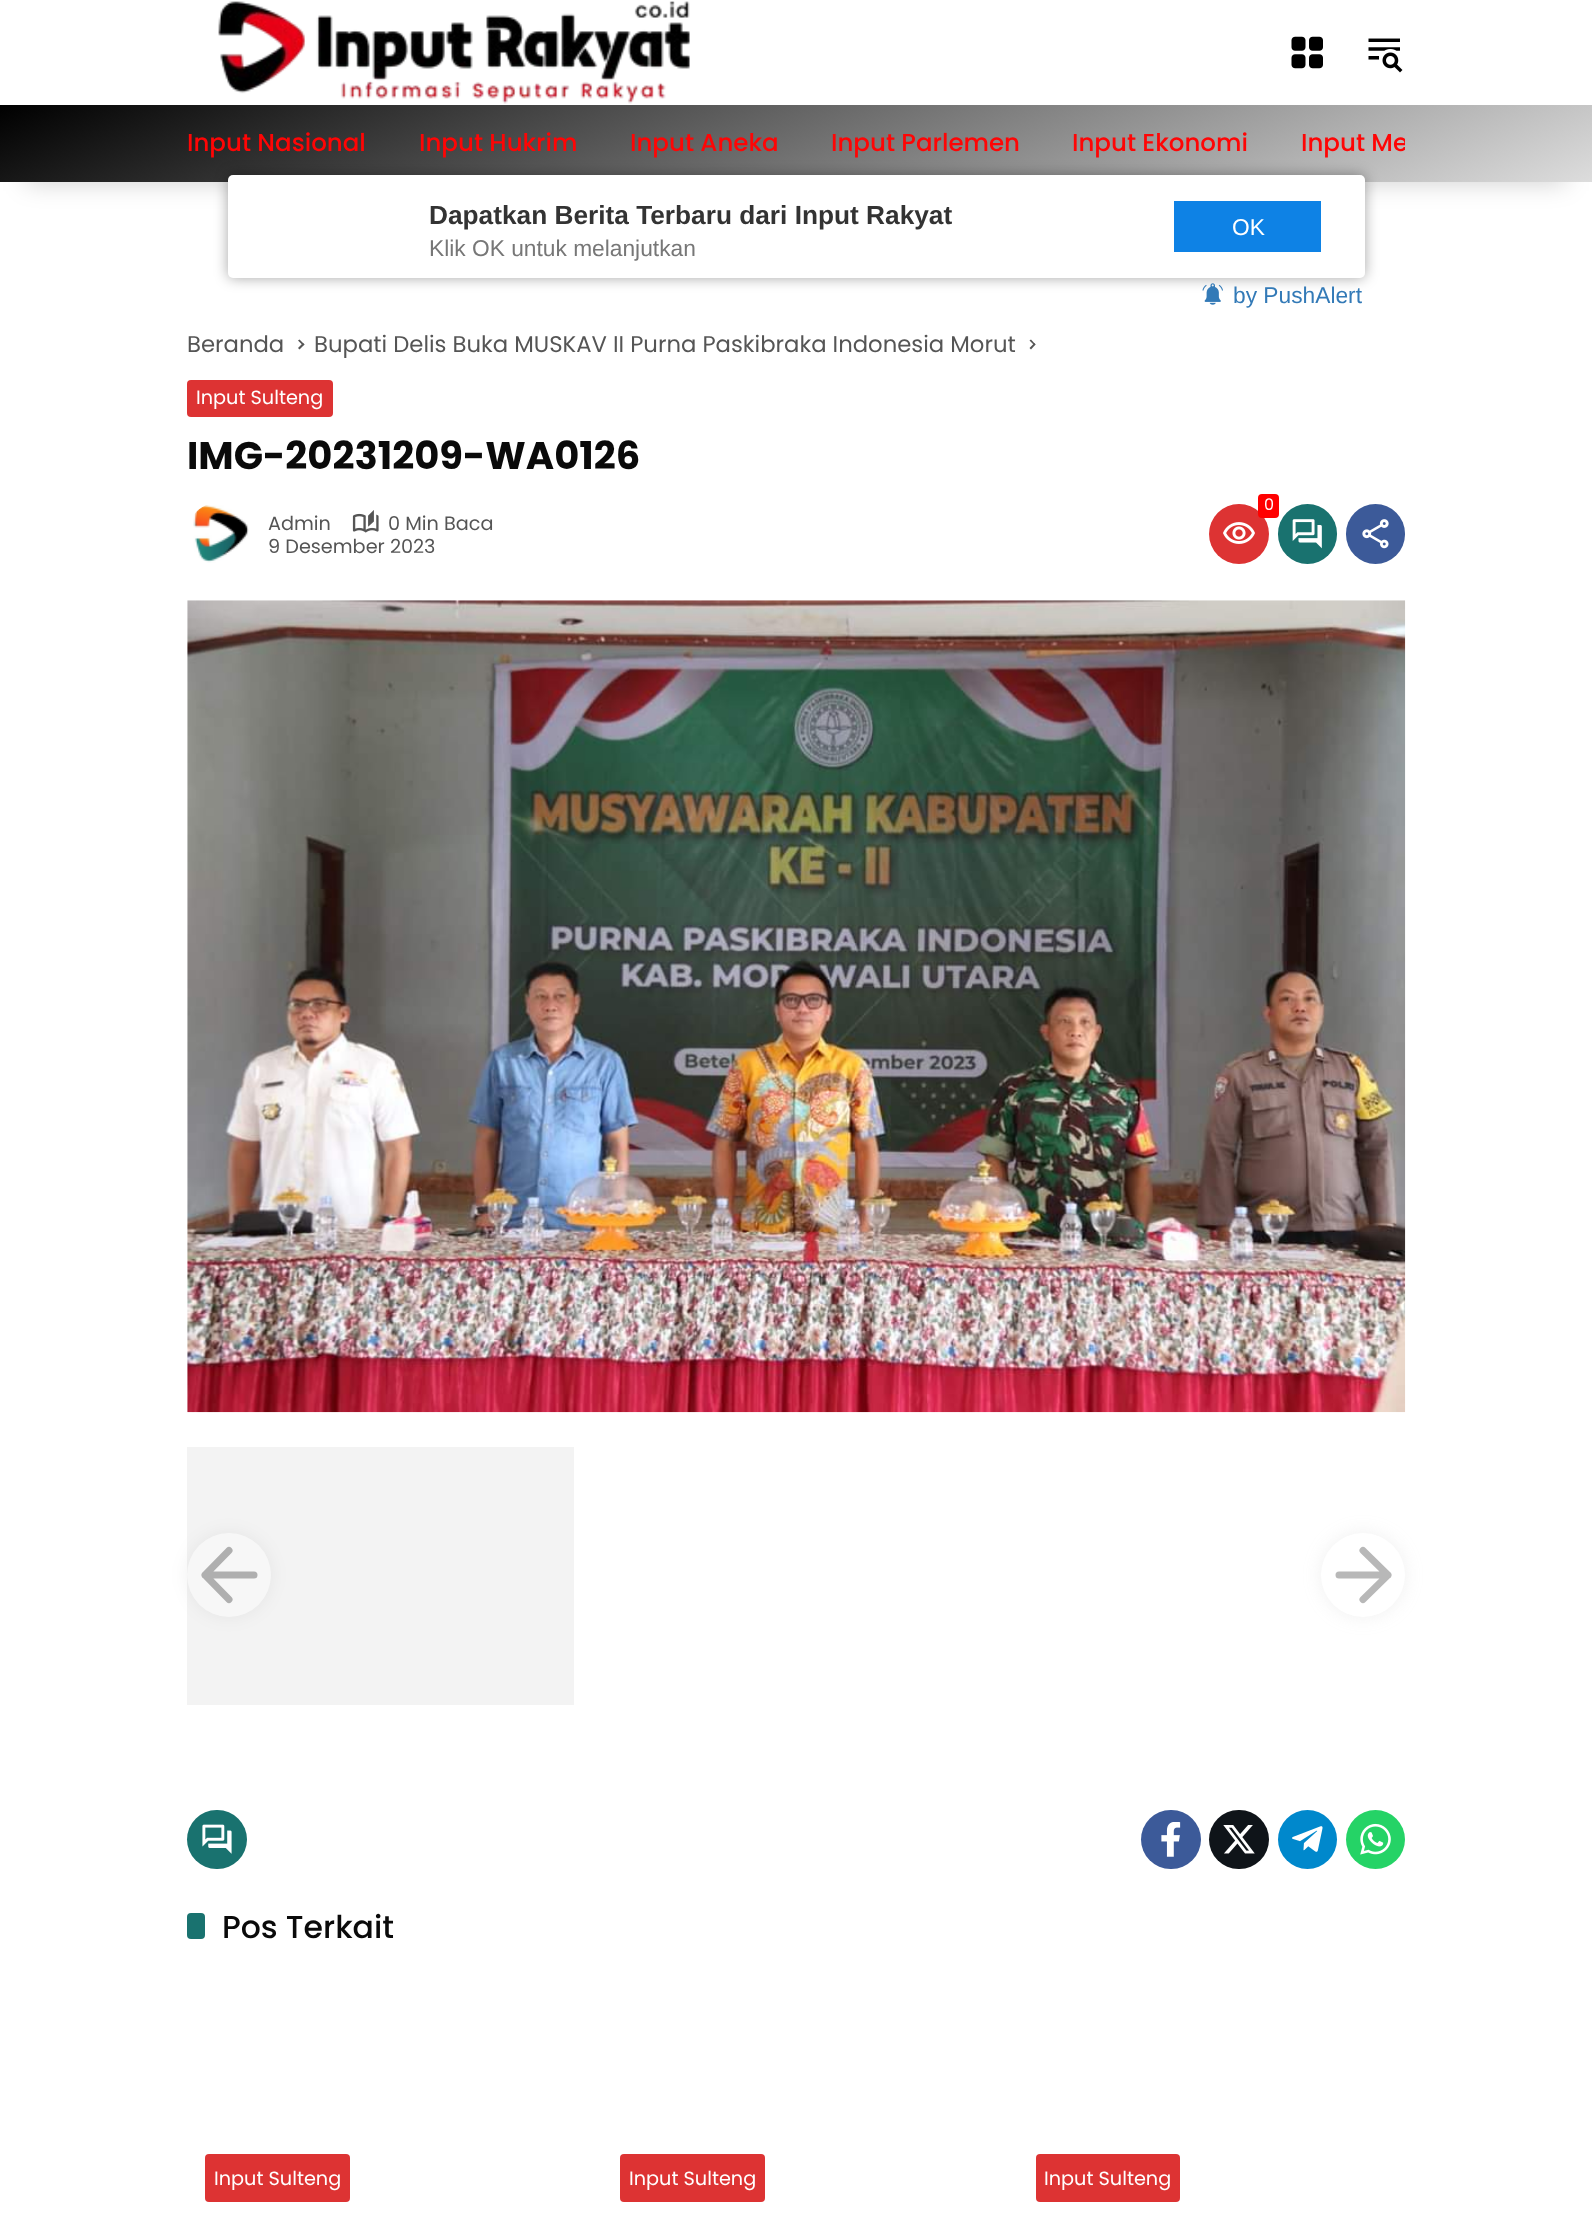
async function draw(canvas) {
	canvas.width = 1592;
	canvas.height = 2234;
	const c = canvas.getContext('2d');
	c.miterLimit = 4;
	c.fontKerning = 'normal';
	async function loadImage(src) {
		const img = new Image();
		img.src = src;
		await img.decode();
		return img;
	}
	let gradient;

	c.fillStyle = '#fff';
	c.fillRect(0, 0, 1592, 2234);
	c.drawImage(await loadImage('img1.png'), 218, 1, 472, 103);
	c.drawImage(await loadImage('img2.png'), 1291, 36, 32, 33);
	c.drawImage(await loadImage('img3.png'), 1368, 38, 35, 35);
	c.fillStyle = '#00000033';
	c.filter = 'blur(13px)';
	c.beginPath();
	c.rect(26, 158, 1540, 24);
	c.fill();
	c.filter = 'none';
	gradient = c.createLinearGradient(661, -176, 932, 463);
	gradient.addColorStop(0, '#000');
	gradient.addColorStop(1, '#ddd');
	c.fillStyle = gradient;
	c.fillRect(0, 105, 1592, 77);
	c.font = '500 24.5px Poppins';
	c.fillStyle = '#ff0505';
	for (const [text, x, y] of [
		['Input Nasional', 187, 151],
		['Input Hukrim', 419, 151],
		['Input Aneka', 630, 151],
		['Input Parlemen', 831, 151],
		['Input Ekonomi', 1072, 151],
	]) {
		c.fillText(text, x, y);
	}
	c.save();
	c.beginPath();
	c.rect(187, 105, 1218, 77);
	c.clip();
	c.fillText('Input Me', 1301, 151);
	c.restore();
	c.font = '22.75px Poppins';
	c.fillStyle = '#555';
	c.fillText('Beranda', 187, 352);
	c.beginPath();
	c.moveTo(298, 340.5);
	c.lineTo(299.5, 339.5);
	c.lineTo(304.5, 344.5);
	c.lineTo(303, 345.5);
	c.closePath();
	c.fill();
	c.beginPath();
	c.moveTo(298, 348);
	c.lineTo(303, 343);
	c.lineTo(304.5, 344.5);
	c.lineTo(299.5, 349.5);
	c.closePath();
	c.fill();
	c.fillText('Bupati Delis Buka MUSKAV II Purna Paskibraka Indonesia Morut', 314, 352);
	c.beginPath();
	c.moveTo(1029.5, 340.5);
	c.lineTo(1031, 339.5);
	c.lineTo(1035.5, 344.5);
	c.lineTo(1034.5, 345.5);
	c.closePath();
	c.fill();
	c.beginPath();
	c.moveTo(1029.5, 348);
	c.lineTo(1034.5, 343);
	c.lineTo(1035.5, 344.5);
	c.lineTo(1031, 349.5);
	c.closePath();
	c.fill();
	c.fillStyle = '#d33';
	c.beginPath();
	c.roundRect(187, 380, 146, 37, 4);
	c.fill();
	c.font = '19.25px Poppins';
	c.fillStyle = '#fff';
	c.fillText('Input Sulteng', 196, 404);
	c.font = 'bold 38.5px Poppins';
	c.fillStyle = '#0a0a0a';
	c.fillText('IMG-20231209-WA0126', 187, 469);
	c.drawImage(await loadImage('img4.png'), 193, 505, 56, 58);
	c.font = '19.25px Poppins';
	c.fillStyle = '#555';
	c.fillText('Admin', 268, 530);
	c.drawImage(await loadImage('img5.png'), 352, 510, 27, 23);
	c.fillText('0 Min Baca', 388, 530);
	c.fillText('9 Desember 2023', 268, 553);
	c.fillStyle = '#d33';
	c.beginPath();
	c.arc(1239, 534, 30, 0, 2 * Math.PI);
	c.fill();
	c.fillStyle = '#f00';
	c.beginPath();
	c.roundRect(1258, 494, 21, 24, 4);
	c.fill();
	c.font = '16px Poppins';
	c.fillStyle = '#fff';
	c.fillText('0', 1264, 510);
	c.drawImage(await loadImage('img6.png'), 1223, 522, 32, 22);
	c.fillStyle = '#19726f';
	c.beginPath();
	c.roundRect(1278, 504, 59, 60, 29.5);
	c.fill();
	c.drawImage(await loadImage('img7.png'), 1292, 519, 30, 30);
	c.fillStyle = '#3c5a99';
	c.beginPath();
	c.roundRect(1346, 504, 59, 60, 29.5);
	c.fill();
	c.drawImage(await loadImage('img8.png'), 1362, 519, 27, 30);
	c.drawImage(await loadImage('img9.png'), 187, 600, 1219, 813);
	c.fillStyle = '#f3f3f3';
	c.fillRect(187, 1447, 387, 258);
	c.fillStyle = '#0000000f';
	c.filter = 'blur(9px)';
	c.beginPath();
	c.roundRect(187, 1533, 84, 84, 42);
	c.fill();
	c.filter = 'none';
	c.fillStyle = '#f7f7f7';
	c.beginPath();
	c.arc(229, 1575, 42, 0, 2 * Math.PI);
	c.fill();
	c.beginPath();
	c.moveTo(254, 1575);
	c.lineTo(205, 1575);
	c.moveTo(229, 1599.5);
	c.lineTo(205, 1575);
	c.lineTo(229, 1550.5);
	c.strokeStyle = '#afafaf';
	c.lineWidth = 7;
	c.lineCap = 'round';
	c.lineJoin = 'round';
	c.stroke();
	c.fillStyle = '#b3b3b333';
	c.filter = 'blur(9px)';
	c.beginPath();
	c.roundRect(1321, 1533, 84, 84, 42);
	c.fill();
	c.filter = 'none';
	c.fillStyle = '#fff';
	c.beginPath();
	c.arc(1363, 1575, 42, 0, 2 * Math.PI);
	c.fill();
	c.beginPath();
	c.moveTo(1339, 1575);
	c.lineTo(1388, 1575);
	c.moveTo(1363, 1550.5);
	c.lineTo(1388, 1575);
	c.lineTo(1363, 1599.5);
	c.strokeStyle = '#b8b8b8';
	c.stroke();
	c.fillStyle = '#19726f';
	c.beginPath();
	c.roundRect(187, 1810, 60, 59, 29.5);
	c.fill();
	c.drawImage(await loadImage('img10.png'), 202, 1824, 30, 30);
	c.fillStyle = '#3c5a99';
	c.beginPath();
	c.roundRect(1141, 1810, 60, 59, 29.5);
	c.fill();
	c.drawImage(await loadImage('img11.png'), 1161, 1822, 20, 35);
	c.fillStyle = '#0f1419';
	c.beginPath();
	c.roundRect(1209, 1810, 60, 59, 29.5);
	c.fill();
	c.drawImage(await loadImage('img12.png'), 1223, 1825, 32, 29);
	c.fillStyle = '#08c';
	c.beginPath();
	c.arc(1307.5, 1839.5, 29.5, 0, 2 * Math.PI);
	c.fill();
	c.drawImage(await loadImage('img13.png'), 1292, 1826, 31, 26);
	c.fillStyle = '#25d366';
	c.beginPath();
	c.arc(1375.5, 1839.5, 29.5, 0, 2 * Math.PI);
	c.fill();
	c.drawImage(await loadImage('img14.png'), 1360, 1823, 31, 32);
	c.fillStyle = '#19726f';
	c.beginPath();
	c.roundRect(187, 1913, 18, 26, 4);
	c.fill();
	c.font = '500 31.5px Poppins';
	c.fillStyle = '#0a0a0a';
	c.fillText('Pos Terkait', 222, 1938);
	c.fillStyle = '#d33';
	c.beginPath();
	c.roundRect(205, 2154, 145, 48, 4);
	c.fill();
	c.font = '19.25px Poppins';
	c.fillStyle = '#fff';
	c.fillText('Input Sulteng', 214, 2185);
	c.fillStyle = '#d33';
	c.beginPath();
	c.roundRect(620, 2154, 145, 48, 4);
	c.fill();
	c.fillStyle = '#fff';
	c.fillText('Input Sulteng', 629, 2185);
	c.fillStyle = '#d33';
	c.beginPath();
	c.roundRect(1036, 2154, 144, 48, 4);
	c.fill();
	c.fillStyle = '#fff';
	c.fillText('Input Sulteng', 1044, 2185);
	c.fillStyle = '#00000059';
	c.filter = 'blur(7px)';
	c.beginPath();
	c.roundRect(228, 175, 1137, 103, 5);
	c.fill();
	c.filter = 'none';
	c.fillStyle = '#fff';
	c.beginPath();
	c.roundRect(228, 175, 1137, 103, 5);
	c.fill();
	c.font = 'bold 26.25px Liberation Sans';
	c.fillStyle = '#333';
	c.fillText('Dapatkan Berita Terbaru dari Input Rakyat', 429, 224);
	c.font = '22.75px Liberation Sans';
	c.fillStyle = '#777';
	c.fillText('Klik OK untuk melanjutkan', 429, 256);
	c.fillStyle = '#0e82e5';
	c.fillRect(1174, 201, 147, 51);
	c.fillStyle = '#fff';
	c.fillText('OK', 1232, 235);
	c.drawImage(await loadImage('img15.png'), 1202, 283, 21, 22);
	c.fillStyle = '#337ab7';
	c.fillText('by PushAlert', 1233, 303);
}

draw(document.querySelector('canvas'));
